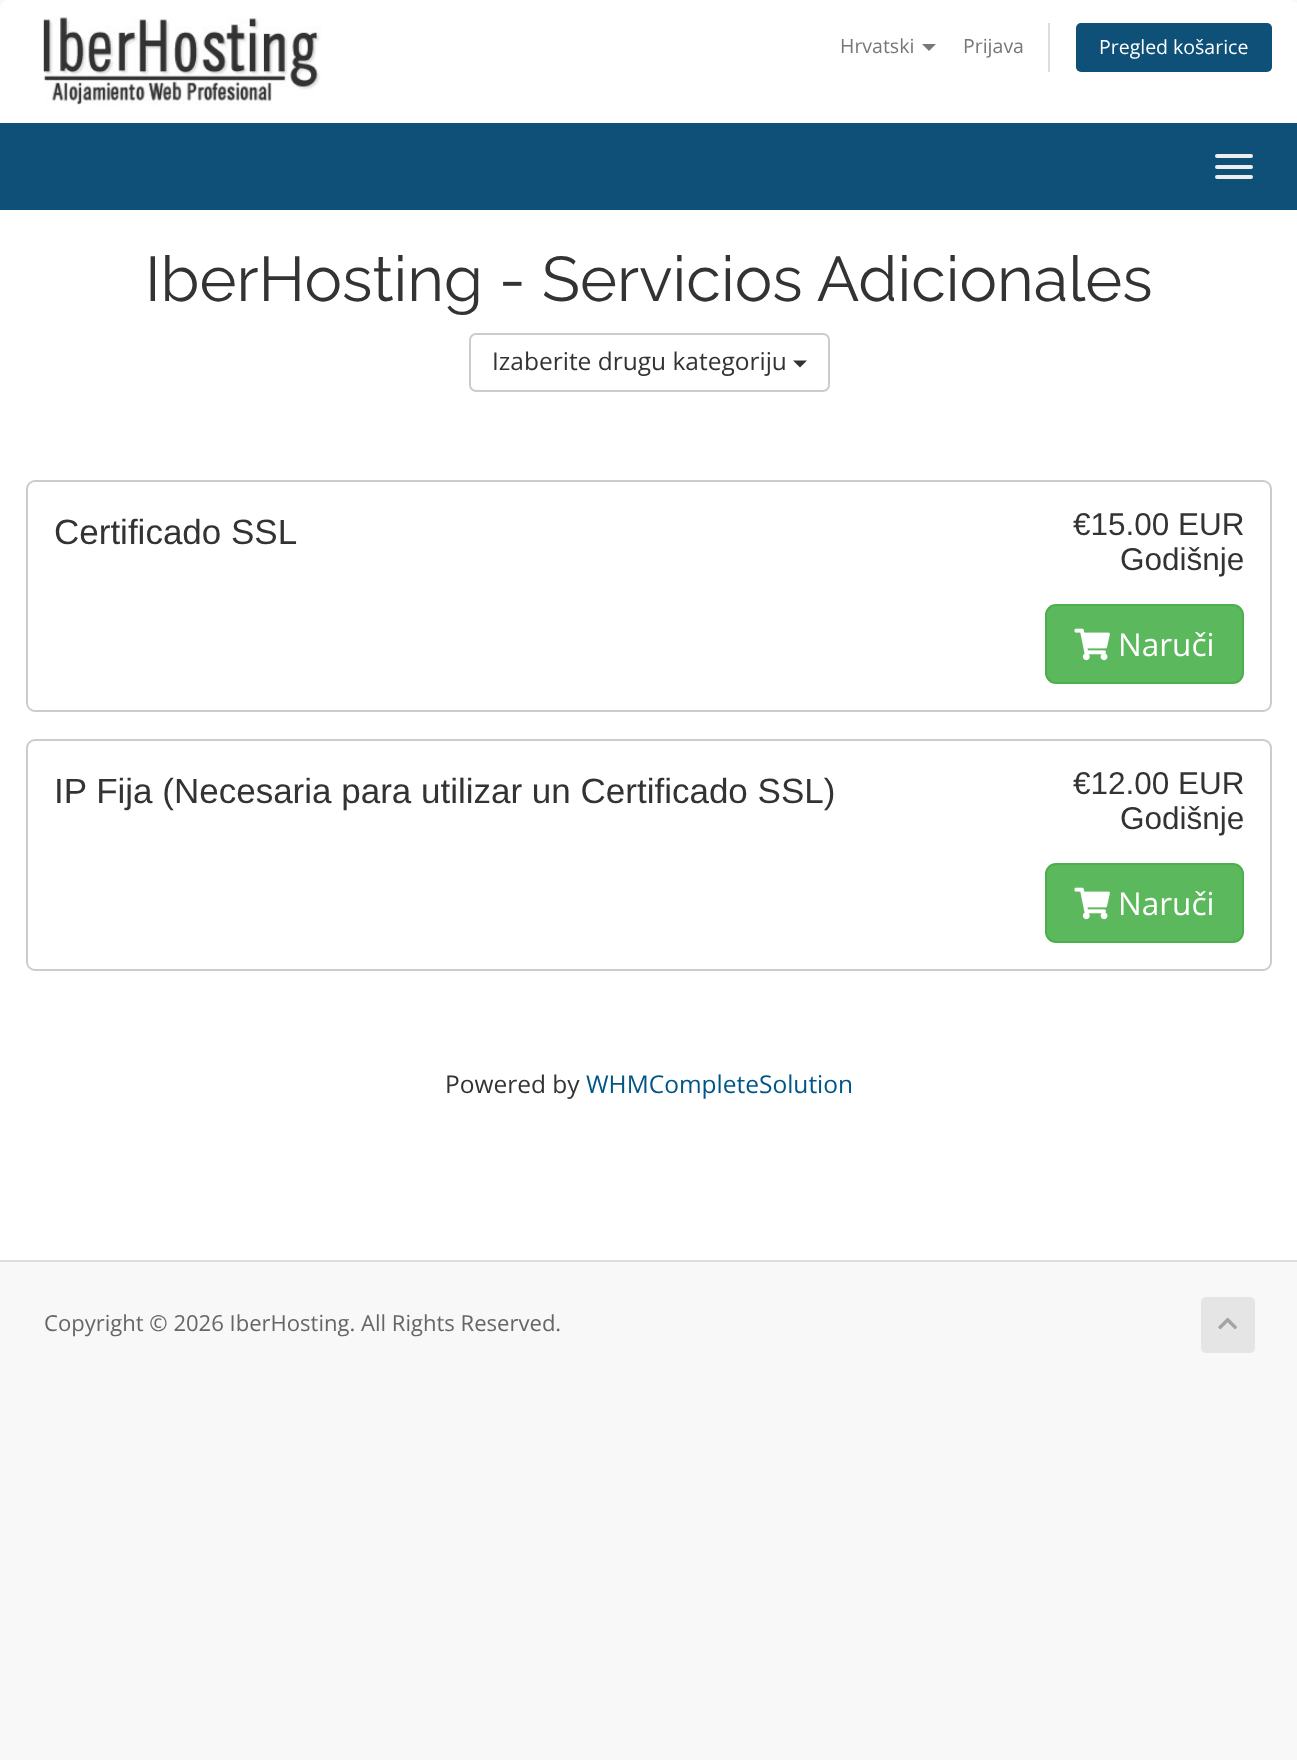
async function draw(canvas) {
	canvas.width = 1297;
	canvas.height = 1760;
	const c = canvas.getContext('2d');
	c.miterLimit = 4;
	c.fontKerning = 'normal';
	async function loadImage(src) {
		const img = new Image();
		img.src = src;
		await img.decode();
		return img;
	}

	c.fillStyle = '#f8f8f8';
	c.fillRect(0, 0, 1297, 1760);
	c.fillStyle = '#fff';
	c.beginPath();
	c.moveTo(9, 0);
	c.lineTo(1290, 0);
	c.bezierCurveTo(1295, 0, 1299, 4, 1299, 9);
	c.lineTo(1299, 123);
	c.lineTo(0, 123);
	c.lineTo(0, 9);
	c.bezierCurveTo(0, 4, 4, 0, 9, 0);
	c.closePath();
	c.fill();
	c.drawImage(await loadImage('img1.png'), 43, 17, 278, 88);
	c.font = '19.5px Open Sans';
	c.fillStyle = '#777';
	c.fillText('Hrvatski', 840, 53);
	c.beginPath();
	c.moveTo(922, 44);
	c.lineTo(936, 44);
	c.lineTo(929, 51);
	c.closePath();
	c.fill();
	c.fillText('Prijava', 963, 53);
	c.fillStyle = '#ddd';
	c.fillRect(1048, 23, 2, 49);
	c.fillStyle = '#0e5077';
	c.beginPath();
	c.roundRect(1076, 23, 196, 49, 5);
	c.fill();
	c.fillStyle = '#fff';
	c.fillText('Pregled košarice', 1099, 54);
	c.fillStyle = '#0e5077';
	c.fillRect(0, 123, 1297, 87);
	c.fillStyle = '#eee';
	c.beginPath();
	c.roundRect(1215, 154, 38, 4, 2);
	c.fill();
	c.beginPath();
	c.roundRect(1215, 165, 38, 4, 2);
	c.fill();
	c.beginPath();
	c.roundRect(1215, 175, 38, 4, 2);
	c.fill();
	c.fillStyle = '#fff';
	c.fillRect(0, 210, 1297, 1050);
	c.font = '63px Raleway';
	c.fillStyle = '#333';
	c.fillText('IberHosting - Servicios Adicionales', 145, 301);
	c.beginPath();
	c.roundRect(470, 334, 359, 57, 6);
	c.strokeStyle = '#ccc';
	c.lineWidth = 2;
	c.stroke();
	c.font = '24.5px Open Sans';
	c.fillText('Izaberite drugu kategoriju', 492, 370);
	c.beginPath();
	c.moveTo(793, 360.5);
	c.lineTo(807, 360.5);
	c.lineTo(800, 367.5);
	c.closePath();
	c.fill();
	c.beginPath();
	c.roundRect(27, 481, 1244, 230, 8);
	c.stroke();
	c.font = '35px Liberation Sans';
	c.fillText('Certificado SSL', 54, 544);
	c.font = '31.5px Liberation Sans';
	c.fillText('€15.00 EUR', 1073, 535);
	c.fillText('Godišnje', 1120, 570);
	c.fillStyle = '#5cb85c';
	c.beginPath();
	c.roundRect(1046, 605, 197, 78, 10);
	c.fill();
	c.strokeStyle = '#4cae4c';
	c.stroke();
	c.drawImage(await loadImage('img2.png'), 1074, 628, 36, 33);
	c.font = '31.5px Open Sans';
	c.fillStyle = '#fff';
	c.fillText('Naruči', 1118, 656);
	c.beginPath();
	c.roundRect(27, 740, 1244, 230, 8);
	c.strokeStyle = '#ccc';
	c.stroke();
	c.font = '35px Liberation Sans';
	c.fillStyle = '#333';
	c.fillText('IP Fija (Necesaria para utilizar un Certificado SSL)', 54, 803);
	c.font = '31.5px Liberation Sans';
	c.fillText('€12.00 EUR', 1073, 794);
	c.fillText('Godišnje', 1120, 829);
	c.fillStyle = '#5cb85c';
	c.beginPath();
	c.roundRect(1046, 864, 197, 78, 10);
	c.fill();
	c.strokeStyle = '#4cae4c';
	c.stroke();
	c.drawImage(await loadImage('img2.png'), 1074, 887, 36, 33);
	c.font = '31.5px Open Sans';
	c.fillStyle = '#fff';
	c.fillText('Naruči', 1118, 915);
	c.font = '24.5px Open Sans';
	c.fillStyle = '#333';
	c.fillText('Powered by', 445, 1093);
	c.fillStyle = '#058';
	c.fillText('WHMCompleteSolution', 586, 1093);
	c.fillStyle = '#ddd';
	c.fillRect(0, 1260, 1297, 2);
	c.font = '22.05px Open Sans';
	c.fillStyle = '#666';
	c.fillText('Copyright © 2026 IberHosting. All Rights Reserved.', 44, 1331);
	c.fillStyle = '#e5e5e5';
	c.beginPath();
	c.roundRect(1201, 1297, 54, 56, 5);
	c.fill();
	c.drawImage(await loadImage('img3.png'), 1218, 1317, 19, 13);
}

draw(document.querySelector('canvas'));
